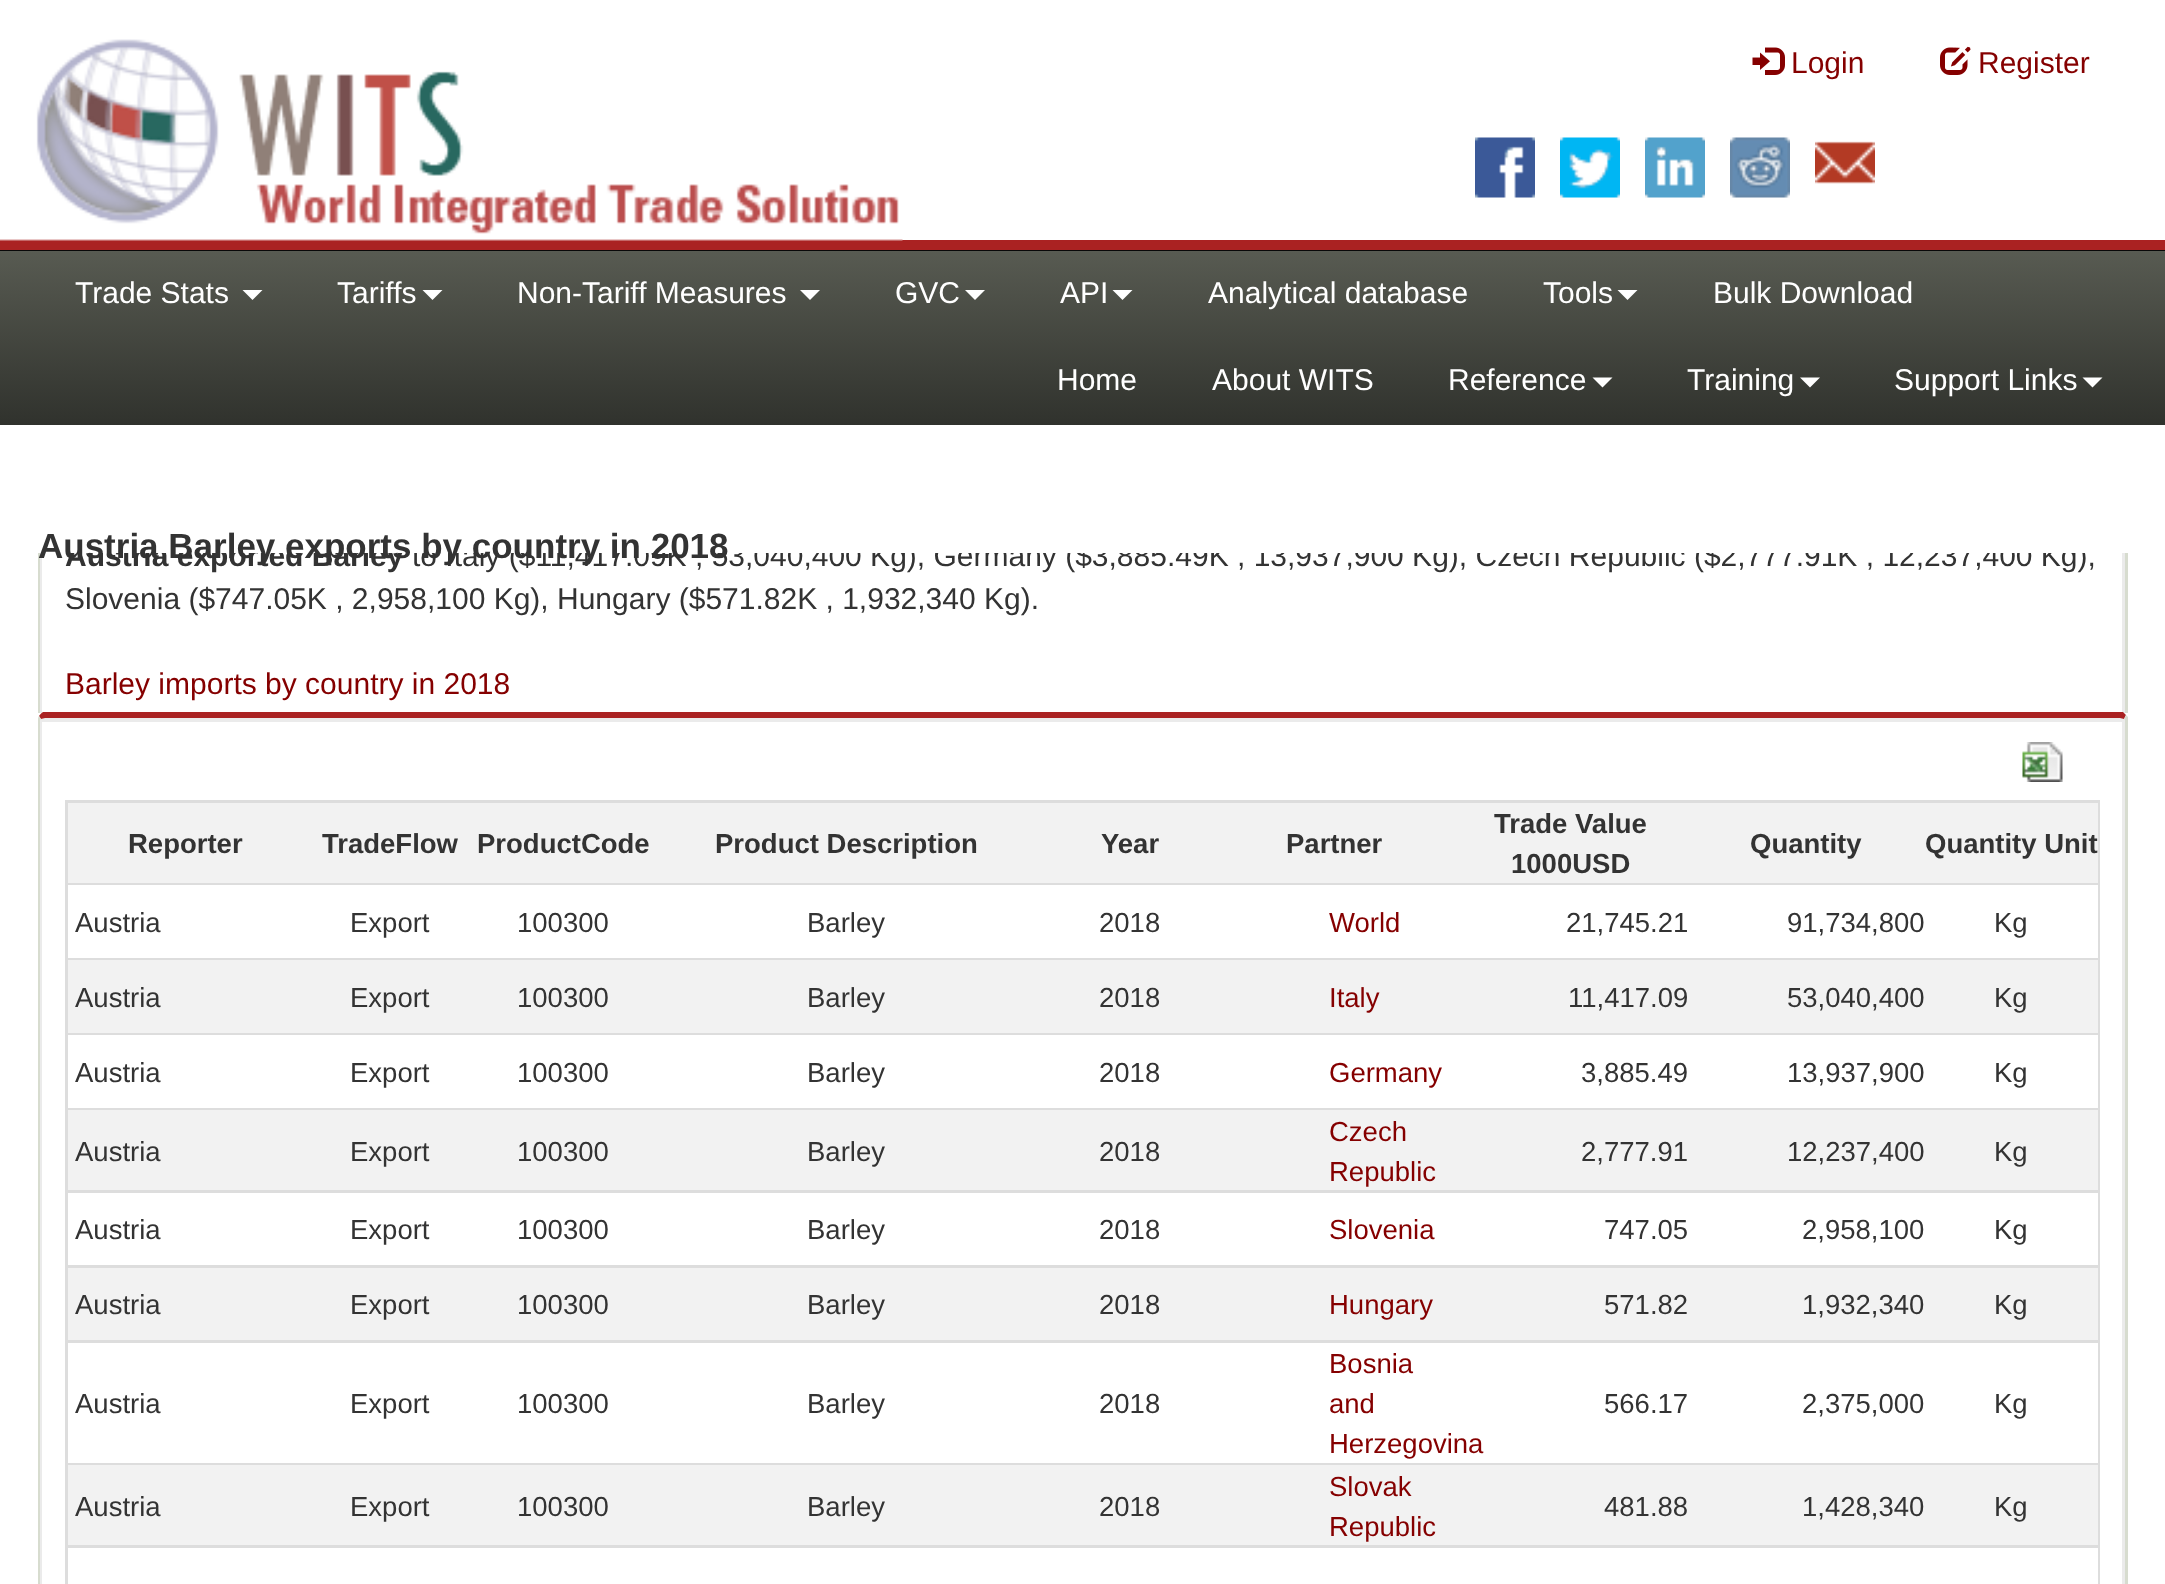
async function draw(canvas) {
	canvas.width = 2165;
	canvas.height = 1584;
	const c = canvas.getContext('2d');
	c.miterLimit = 4;
	c.fontKerning = 'normal';
	async function loadImage(src) {
		const img = new Image();
		img.src = src;
		await img.decode();
		return img;
	}
	let gradient;

	c.fillStyle = '#fff';
	c.fillRect(0, 0, 2165, 1584);
	c.fillStyle = '#080808';
	c.fillRect(0, 250, 2165, 1);
	c.fillStyle = '#a22';
	c.fillRect(0, 240, 2165, 10);
	c.drawImage(await loadImage('img1.png'), 0, 39, 903, 202);
	c.drawImage(await loadImage('img2.png'), 1752, 47, 33, 28);
	c.font = '30px Liberation Sans';
	c.fillStyle = '#850000';
	c.fillText('Login', 1791, 73);
	c.drawImage(await loadImage('img3.png'), 1940, 46, 31, 29);
	c.fillText('Register', 1978, 73);
	c.drawImage(await loadImage('img4.png'), 1475, 137, 60, 61);
	c.drawImage(await loadImage('img5.png'), 1560, 137, 60, 61);
	c.drawImage(await loadImage('img6.png'), 1645, 137, 60, 61);
	c.drawImage(await loadImage('img7.png'), 1730, 137, 60, 61);
	c.drawImage(await loadImage('img8.png'), 1815, 141, 60, 43);
	gradient = c.createLinearGradient(1083, 250, 1083, 425);
	gradient.addColorStop(0, '#585b52');
	gradient.addColorStop(1, '#30322d');
	c.fillStyle = gradient;
	c.fillRect(0, 251, 2165, 174);
	c.fillStyle = '#fff';
	c.fillText('Trade Stats', 75, 303);
	c.beginPath();
	c.moveTo(242.5, 290);
	c.lineTo(262.5, 290);
	c.lineTo(252.5, 300);
	c.closePath();
	c.fill();
	c.fillText('Tariffs', 337, 303);
	c.beginPath();
	c.moveTo(422.5, 290);
	c.lineTo(442.5, 290);
	c.lineTo(432.5, 300);
	c.closePath();
	c.fill();
	c.fillText('Non-Tariff Measures', 517, 303);
	c.beginPath();
	c.moveTo(800, 290);
	c.lineTo(820, 290);
	c.lineTo(810, 300);
	c.closePath();
	c.fill();
	c.fillText('GVC', 895, 303);
	c.beginPath();
	c.moveTo(965, 290);
	c.lineTo(985, 290);
	c.lineTo(975, 300);
	c.closePath();
	c.fill();
	c.fillText('API', 1060, 303);
	c.beginPath();
	c.moveTo(1112.5, 290);
	c.lineTo(1132.5, 290);
	c.lineTo(1122.5, 300);
	c.closePath();
	c.fill();
	c.fillText('Analytical database', 1208, 303);
	c.fillText('Tools', 1543, 303);
	c.beginPath();
	c.moveTo(1617.5, 290);
	c.lineTo(1637.5, 290);
	c.lineTo(1627.5, 300);
	c.closePath();
	c.fill();
	for (const [text, x, y] of [
		['Bulk Download', 1713, 303],
		['Home', 1057, 390],
		['About WITS', 1212, 390],
		['Reference', 1448, 390],
	]) {
		c.fillText(text, x, y);
	}
	c.beginPath();
	c.moveTo(1592.5, 377.5);
	c.lineTo(1612.5, 377.5);
	c.lineTo(1602.5, 387.5);
	c.closePath();
	c.fill();
	c.fillText('Training', 1687, 390);
	c.beginPath();
	c.moveTo(1800, 377.5);
	c.lineTo(1820, 377.5);
	c.lineTo(1810, 387.5);
	c.closePath();
	c.fill();
	c.fillText('Support Links', 1894, 390);
	c.beginPath();
	c.moveTo(2082.5, 377.5);
	c.lineTo(2102.5, 377.5);
	c.lineTo(2092.5, 387.5);
	c.closePath();
	c.fill();
	c.fillStyle = '#ebebeb';
	c.beginPath();
	c.moveTo(45, 468);
	c.bezierCurveTo(42, 468, 40, 469, 40, 470);
	c.lineTo(40, 830);
	c.bezierCurveTo(40, 833, 42, 835, 45, 835);
	c.bezierCurveTo(44, 835, 42, 834, 42, 832);
	c.lineTo(42, 472);
	c.lineTo(2122, 472);
	c.lineTo(2122, 832);
	c.bezierCurveTo(2122, 834, 2121, 835, 2120, 835);
	c.bezierCurveTo(2123, 835, 2125, 833, 2125, 830);
	c.lineTo(2125, 470);
	c.bezierCurveTo(2125, 469, 2123, 468, 2120, 468);
	c.closePath();
	c.fill();
	c.fillStyle = '#d7dccf';
	c.beginPath();
	c.moveTo(2128, 833);
	c.lineTo(2126, 836);
	c.lineTo(2124, 834);
	c.bezierCurveTo(2124, 833, 2125, 832, 2125, 830);
	c.lineTo(2125, 470);
	c.lineTo(2124, 469);
	c.lineTo(2126, 465);
	c.lineTo(2128, 467);
	c.closePath();
	c.fill();
	c.beginPath();
	c.moveTo(40, 835);
	c.bezierCurveTo(39, 834, 38, 832, 38, 830);
	c.lineTo(38, 470);
	c.bezierCurveTo(38, 469, 38, 467, 39, 466);
	c.lineTo(41, 469);
	c.lineTo(40, 470);
	c.lineTo(40, 830);
	c.bezierCurveTo(40, 832, 40, 833, 41, 834);
	c.closePath();
	c.fill();
	c.font = 'bold 30px Liberation Sans';
	c.fillStyle = '#333';
	c.fillText('Austria exported Barley', 65, 566);
	c.font = '30px Liberation Sans';
	c.fillText('to Italy ($11,417.09K , 53,040,400 Kg), Germany ($3,885.49K , 13,937,900 Kg), Czech Republic ($2,777.91K , 12,237,400 Kg),', 412, 566);
	c.fillStyle = '#fff';
	c.fillRect(38, 465, 2090, 88);
	c.font = 'bold 35px Liberation Sans';
	c.fillStyle = '#333';
	c.fillText('Austria Barley exports by country in 2018', 38, 558);
	c.font = '30px Liberation Sans';
	c.fillText('Slovenia ($747.05K , 2,958,100 Kg), Hungary ($571.82K , 1,932,340 Kg).', 65, 609);
	c.fillStyle = '#850000';
	c.fillText('Barley imports by country in 2018', 65, 694);
	c.fillStyle = '#fff';
	c.fillRect(38, 713, 2090, 123);
	c.fillStyle = '#ebebeb';
	c.beginPath();
	c.moveTo(45, 718);
	c.bezierCurveTo(42, 718, 40, 719, 40, 720);
	c.lineTo(40, 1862);
	c.bezierCurveTo(40, 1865, 42, 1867, 44, 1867);
	c.lineTo(42, 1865);
	c.lineTo(42, 722);
	c.lineTo(2122, 722);
	c.lineTo(2122, 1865);
	c.lineTo(2121, 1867);
	c.bezierCurveTo(2123, 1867, 2125, 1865, 2125, 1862);
	c.lineTo(2125, 720);
	c.bezierCurveTo(2125, 719, 2123, 718, 2120, 718);
	c.closePath();
	c.fill();
	c.fillStyle = '#a22';
	c.beginPath();
	c.moveTo(45, 718);
	c.lineTo(41, 719);
	c.lineTo(39, 716);
	c.bezierCurveTo(40, 715, 41, 713, 43, 712);
	c.lineTo(2123, 712);
	c.lineTo(2126, 715);
	c.lineTo(2124, 719);
	c.lineTo(2120, 718);
	c.closePath();
	c.fill();
	c.fillStyle = '#d7dccf';
	c.beginPath();
	c.moveTo(2128, 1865);
	c.lineTo(2125, 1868);
	c.lineTo(2124, 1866);
	c.lineTo(2125, 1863);
	c.lineTo(2125, 720);
	c.lineTo(2124, 719);
	c.lineTo(2126, 715);
	c.lineTo(2128, 717);
	c.closePath();
	c.fill();
	c.beginPath();
	c.moveTo(40, 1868);
	c.bezierCurveTo(39, 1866, 38, 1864, 38, 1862);
	c.lineTo(38, 720);
	c.bezierCurveTo(38, 719, 38, 717, 39, 716);
	c.lineTo(41, 719);
	c.lineTo(40, 720);
	c.lineTo(40, 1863);
	c.lineTo(41, 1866);
	c.closePath();
	c.fill();
	c.drawImage(await loadImage('img9.png'), 2022, 742, 41, 40);
	c.strokeStyle = '#ddd';
	c.lineWidth = 3;
	c.strokeRect(66.5, 801.5, 2032, 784);
	c.fillStyle = '#f2f2f2';
	c.fillRect(68, 803, 2030, 80);
	c.fillStyle = '#ddd';
	c.fillRect(68, 883, 2030, 2);
	c.font = 'bold 27.5px Liberation Sans';
	c.fillStyle = '#333';
	for (const [text, x, y] of [
		['Reporter', 128, 853],
		['TradeFlow', 322, 853],
		['ProductCode', 477, 853],
		['Product Description', 715, 853],
		['Year', 1101, 853],
		['Partner', 1286, 853],
		['Trade Value', 1494, 833],
		['1000USD', 1511, 873],
		['Quantity', 1750, 853],
		['Quantity Unit', 1925, 853],
	]) {
		c.fillText(text, x, y);
	}
	c.fillStyle = '#fff';
	c.fillRect(2097, 885, 1, 73);
	c.fillStyle = '#ddd';
	c.fillRect(68, 958, 2030, 2);
	c.font = '27.5px Liberation Sans';
	c.fillStyle = '#333';
	for (const [text, x, y] of [
		['Austria', 75, 932],
		['Export', 350, 932],
		['100300', 517, 932],
		['Barley', 807, 932],
		['2018', 1099, 932],
	]) {
		c.fillText(text, x, y);
	}
	c.fillStyle = '#850000';
	c.fillText('World', 1329, 932);
	c.fillStyle = '#333';
	for (const [text, x, y] of [
		['21,745.21', 1566, 932],
		['91,734,800', 1787, 932],
		['Kg', 1994, 932],
	]) {
		c.fillText(text, x, y);
	}
	c.fillStyle = '#f2f2f2';
	c.fillRect(68, 960, 2030, 73);
	c.fillStyle = '#ddd';
	c.fillRect(68, 1033, 2030, 2);
	c.fillStyle = '#333';
	for (const [text, x, y] of [
		['Austria', 75, 1007],
		['Export', 350, 1007],
		['100300', 517, 1007],
		['Barley', 807, 1007],
		['2018', 1099, 1007],
	]) {
		c.fillText(text, x, y);
	}
	c.fillStyle = '#850000';
	c.fillText('Italy', 1329, 1007);
	c.fillStyle = '#333';
	for (const [text, x, y] of [
		['11,417.09', 1568, 1007],
		['53,040,400', 1787, 1007],
		['Kg', 1994, 1007],
	]) {
		c.fillText(text, x, y);
	}
	c.fillStyle = '#fff';
	c.fillRect(2097, 1035, 1, 73);
	c.fillStyle = '#ddd';
	c.fillRect(68, 1108, 2030, 2);
	c.fillStyle = '#333';
	for (const [text, x, y] of [
		['Austria', 75, 1082],
		['Export', 350, 1082],
		['100300', 517, 1082],
		['Barley', 807, 1082],
		['2018', 1099, 1082],
	]) {
		c.fillText(text, x, y);
	}
	c.fillStyle = '#850000';
	c.fillText('Germany', 1329, 1082);
	c.fillStyle = '#333';
	for (const [text, x, y] of [
		['3,885.49', 1581, 1082],
		['13,937,900', 1787, 1082],
		['Kg', 1994, 1082],
	]) {
		c.fillText(text, x, y);
	}
	c.fillStyle = '#f2f2f2';
	c.fillRect(68, 1110, 2030, 80);
	c.fillStyle = '#ddd';
	c.fillRect(68, 1190, 2030, 3);
	c.fillStyle = '#333';
	for (const [text, x, y] of [
		['Austria', 75, 1161],
		['Export', 350, 1161],
		['100300', 517, 1161],
		['Barley', 807, 1161],
		['2018', 1099, 1161],
	]) {
		c.fillText(text, x, y);
	}
	c.fillStyle = '#850000';
	c.fillText('Czech', 1329, 1141);
	c.fillText('Republic', 1329, 1181);
	c.fillStyle = '#333';
	for (const [text, x, y] of [
		['2,777.91', 1581, 1161],
		['12,237,400', 1787, 1161],
		['Kg', 1994, 1161],
	]) {
		c.fillText(text, x, y);
	}
	c.fillStyle = '#fff';
	c.fillRect(2097, 1193, 1, 72);
	c.fillStyle = '#ddd';
	c.fillRect(68, 1265, 2030, 3);
	c.fillStyle = '#333';
	for (const [text, x, y] of [
		['Austria', 75, 1239],
		['Export', 350, 1239],
		['100300', 517, 1239],
		['Barley', 807, 1239],
		['2018', 1099, 1239],
	]) {
		c.fillText(text, x, y);
	}
	c.fillStyle = '#850000';
	c.fillText('Slovenia', 1329, 1239);
	c.fillStyle = '#333';
	for (const [text, x, y] of [
		['747.05', 1604, 1239],
		['2,958,100', 1802, 1239],
		['Kg', 1994, 1239],
	]) {
		c.fillText(text, x, y);
	}
	c.fillStyle = '#f2f2f2';
	c.fillRect(68, 1268, 2030, 72);
	c.fillStyle = '#ddd';
	c.fillRect(68, 1340, 2030, 3);
	c.fillStyle = '#333';
	for (const [text, x, y] of [
		['Austria', 75, 1314],
		['Export', 350, 1314],
		['100300', 517, 1314],
		['Barley', 807, 1314],
		['2018', 1099, 1314],
	]) {
		c.fillText(text, x, y);
	}
	c.fillStyle = '#850000';
	c.fillText('Hungary', 1329, 1314);
	c.fillStyle = '#333';
	for (const [text, x, y] of [
		['571.82', 1604, 1314],
		['1,932,340', 1802, 1314],
		['Kg', 1994, 1314],
	]) {
		c.fillText(text, x, y);
	}
	c.fillStyle = '#fff';
	c.fillRect(2097, 1343, 1, 120);
	c.fillStyle = '#ddd';
	c.fillRect(68, 1463, 2030, 2);
	c.fillStyle = '#333';
	for (const [text, x, y] of [
		['Austria', 75, 1413],
		['Export', 350, 1413],
		['100300', 517, 1413],
		['Barley', 807, 1413],
		['2018', 1099, 1413],
	]) {
		c.fillText(text, x, y);
	}
	c.fillStyle = '#850000';
	for (const [text, x, y] of [
		['Bosnia', 1329, 1373],
		['and', 1329, 1413],
		['Herzegovina', 1329, 1453],
	]) {
		c.fillText(text, x, y);
	}
	c.fillStyle = '#333';
	for (const [text, x, y] of [
		['566.17', 1604, 1413],
		['2,375,000', 1802, 1413],
		['Kg', 1994, 1413],
	]) {
		c.fillText(text, x, y);
	}
	c.fillStyle = '#f2f2f2';
	c.fillRect(68, 1465, 2030, 80);
	c.fillStyle = '#ddd';
	c.fillRect(68, 1545, 2030, 3);
	c.fillStyle = '#333';
	for (const [text, x, y] of [
		['Austria', 75, 1516],
		['Export', 350, 1516],
		['100300', 517, 1516],
		['Barley', 807, 1516],
		['2018', 1099, 1516],
	]) {
		c.fillText(text, x, y);
	}
	c.fillStyle = '#850000';
	c.fillText('Slovak', 1329, 1496);
	c.fillText('Republic', 1329, 1536);
	c.fillStyle = '#333';
	for (const [text, x, y] of [
		['481.88', 1604, 1516],
		['1,428,340', 1802, 1516],
		['Kg', 1994, 1516],
	]) {
		c.fillText(text, x, y);
	}
	c.fillStyle = '#fff';
	c.fillRect(2097, 1548, 1, 36);
}

draw(document.querySelector('canvas'));
